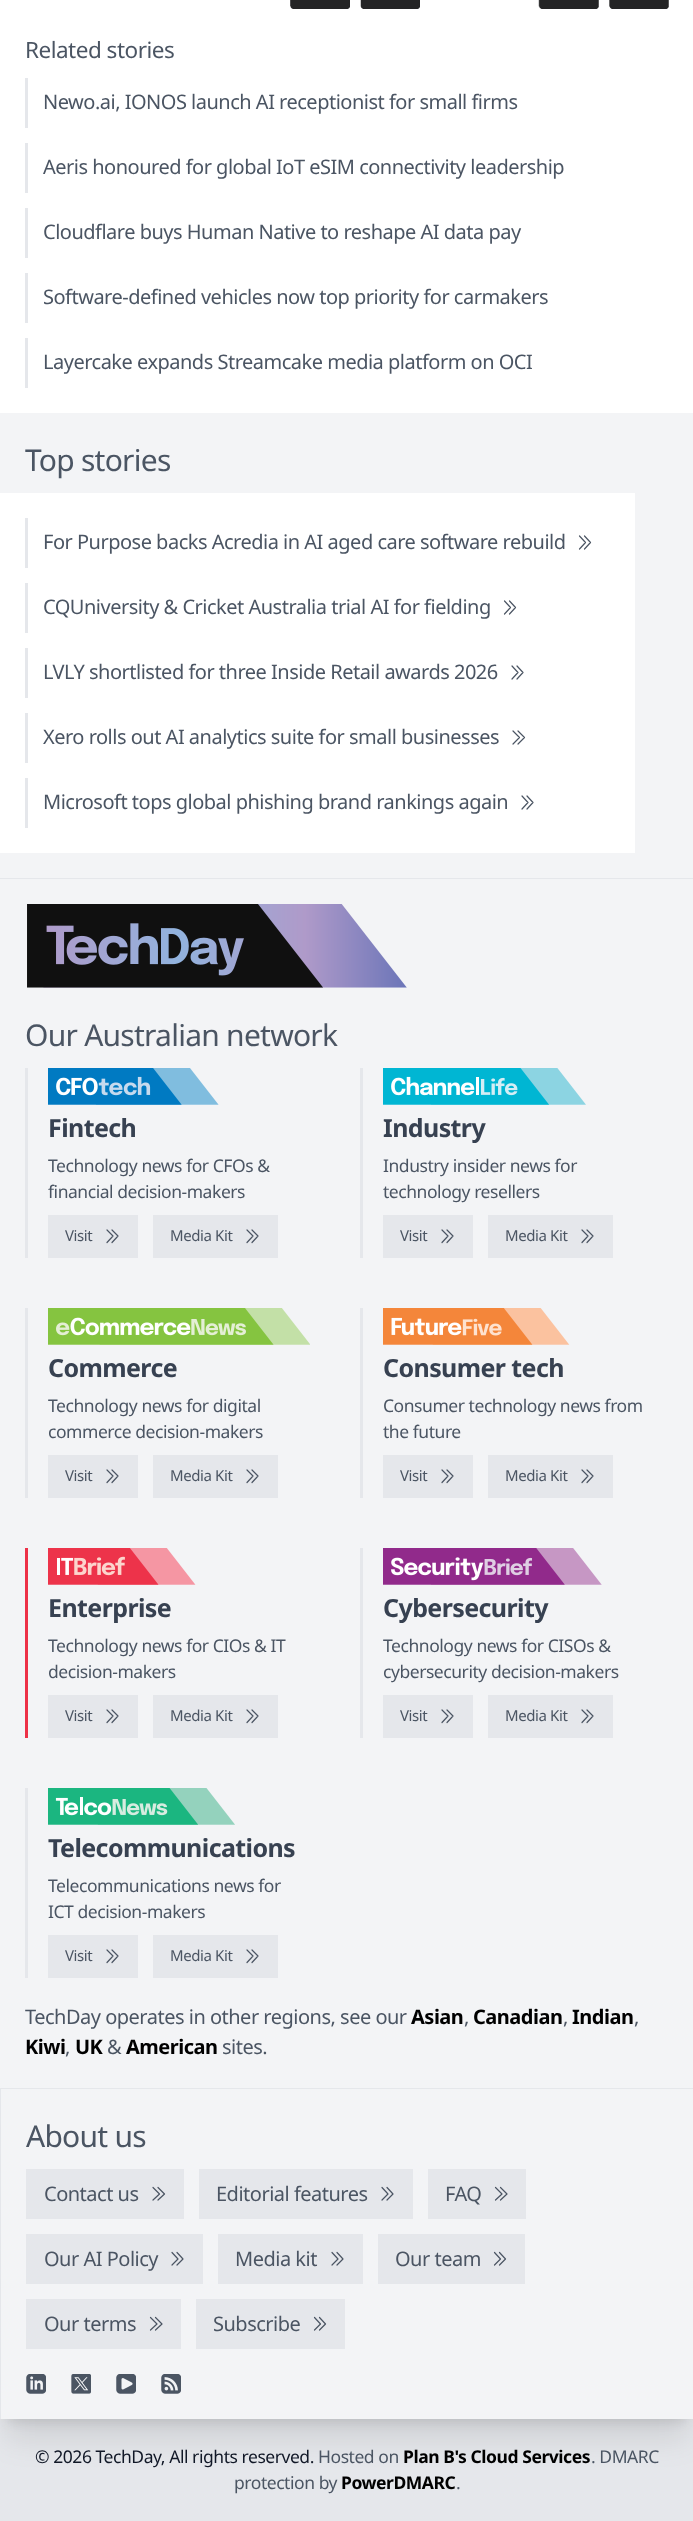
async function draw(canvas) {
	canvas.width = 693;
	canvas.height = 2521;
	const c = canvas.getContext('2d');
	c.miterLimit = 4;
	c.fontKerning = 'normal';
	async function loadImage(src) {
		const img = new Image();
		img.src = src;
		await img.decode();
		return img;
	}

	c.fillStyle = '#e5e7eb';
	c.fillRect(0, 0, 693, 2521);
	c.fillStyle = '#0000001a';
	c.filter = 'blur(6px)';
	c.beginPath();
	c.rect(8, -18, 678, 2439);
	c.fill();
	c.filter = 'none';
	c.filter = 'blur(15.5px)';
	c.beginPath();
	c.rect(6, -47, 682, 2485);
	c.fill();
	c.filter = 'none';
	c.fillStyle = '#f3f4f6';
	c.fillRect(0, 413, 693, 2006);
	c.fillStyle = '#fff';
	c.fillRect(0, 0, 693, 413);
	c.drawImage(await loadImage('img1.png'), 290, 0, 60, 9);
	c.drawImage(await loadImage('img2.png'), 360, 0, 60, 9);
	c.drawImage(await loadImage('img3.png'), 538, 0, 61, 9);
	c.drawImage(await loadImage('img4.png'), 609, 0, 60, 9);
	c.letterSpacing = '-0.5px';
	c.font = '22.5px Noto Sans';
	c.fillStyle = '#4b5563';
	c.fillText('Related stories', 25, 58);
	c.fillStyle = '#e5e7eb';
	c.fillRect(25, 78, 3, 50);
	c.font = '20px Noto Sans';
	c.fillStyle = '#4b5563';
	c.fillText('Newo.ai, IONOS launch AI receptionist for small firms', 43, 109);
	c.fillStyle = '#e5e7eb';
	c.fillRect(25, 143, 3, 50);
	c.fillStyle = '#4b5563';
	c.fillText('Aeris honoured for global IoT eSIM connectivity leadership', 43, 174);
	c.fillStyle = '#e5e7eb';
	c.fillRect(25, 208, 3, 50);
	c.fillStyle = '#4b5563';
	c.fillText('Cloudflare buys Human Native to reshape AI data pay', 43, 239);
	c.fillStyle = '#e5e7eb';
	c.fillRect(25, 273, 3, 50);
	c.fillStyle = '#4b5563';
	c.fillText('Software-defined vehicles now top priority for carmakers', 43, 304);
	c.fillStyle = '#e5e7eb';
	c.fillRect(25, 338, 3, 50);
	c.fillStyle = '#4b5563';
	c.fillText('Layercake expands Streamcake media platform on OCI', 43, 369);
	c.letterSpacing = '-0.75px';
	c.font = '30px Noto Sans';
	c.fillText('Top stories', 25, 471);
	c.fillStyle = '#fff';
	c.fillRect(0, 493, 635, 360);
	c.fillStyle = '#e5e7eb';
	c.fillRect(25, 518, 3, 50);
	c.letterSpacing = '-0.5px';
	c.font = '20px Noto Sans';
	c.fillStyle = '#4b5563';
	c.fillText('For Purpose backs Acredia in AI aged care software rebuild', 43, 549);
	c.beginPath();
	c.moveTo(584.5, 536);
	c.lineTo(590.5, 542.5);
	c.lineTo(584.5, 549);
	c.moveTo(579.5, 536);
	c.lineTo(585.5, 542.5);
	c.lineTo(579.5, 549);
	c.strokeStyle = '#4b5563';
	c.lineWidth = 1.2;
	c.lineCap = 'round';
	c.lineJoin = 'round';
	c.stroke();
	c.fillStyle = '#e5e7eb';
	c.fillRect(25, 583, 3, 50);
	c.fillStyle = '#4b5563';
	c.fillText('CQUniversity & Cricket Australia trial AI for fielding', 43, 614);
	c.beginPath();
	c.moveTo(509.5, 601);
	c.lineTo(515.5, 607.5);
	c.lineTo(509.5, 614);
	c.moveTo(504.5, 601);
	c.lineTo(510.5, 607.5);
	c.lineTo(504.5, 614);
	c.stroke();
	c.fillStyle = '#e5e7eb';
	c.fillRect(25, 648, 3, 50);
	c.fillStyle = '#4b5563';
	c.fillText('LVLY shortlisted for three Inside Retail awards 2026', 43, 679);
	c.beginPath();
	c.moveTo(517, 666);
	c.lineTo(523, 672.5);
	c.lineTo(517, 679);
	c.moveTo(512, 666);
	c.lineTo(518, 672.5);
	c.lineTo(512, 679);
	c.stroke();
	c.fillStyle = '#e5e7eb';
	c.fillRect(25, 713, 3, 50);
	c.fillStyle = '#4b5563';
	c.fillText('Xero rolls out AI analytics suite for small businesses', 43, 744);
	c.beginPath();
	c.moveTo(518, 731);
	c.lineTo(524.5, 737.5);
	c.lineTo(518, 744);
	c.moveTo(513, 731);
	c.lineTo(519.5, 737.5);
	c.lineTo(513, 744);
	c.stroke();
	c.fillStyle = '#e5e7eb';
	c.fillRect(25, 778, 3, 50);
	c.fillStyle = '#4b5563';
	c.fillText('Microsoft tops global phishing brand rankings again', 43, 809);
	c.beginPath();
	c.moveTo(527, 796);
	c.lineTo(533, 802.5);
	c.lineTo(527, 809);
	c.moveTo(522, 796);
	c.lineTo(528, 802.5);
	c.lineTo(522, 809);
	c.stroke();
	c.fillStyle = '#e5e7eb';
	c.fillRect(0, 878, 693, 1);
	c.drawImage(await loadImage('img5.png'), 27, 904, 380, 84);
	c.letterSpacing = '-0.75px';
	c.font = '30px Noto Sans';
	c.fillStyle = '#4b5563';
	c.fillText('Our Australian network', 25, 1046);
	c.fillStyle = '#e5e7eb';
	c.fillRect(25, 1068, 3, 190);
	c.drawImage(await loadImage('img6.png'), 48, 1068, 171, 37);
	c.letterSpacing = '-0.6px';
	c.font = 'bold 25px Noto Sans';
	c.fillStyle = '#374151';
	c.fillText('Fintech', 48, 1137);
	c.letterSpacing = '-0.45px';
	c.font = '17.5px Noto Sans';
	c.fillStyle = '#4b5563';
	c.fillText('Technology news for CFOs &', 48, 1172);
	c.fillText('financial decision-makers', 48, 1198);
	c.fillStyle = '#e5e7eb';
	c.fillRect(48, 1215, 90, 43);
	c.letterSpacing = '-0.4px';
	c.font = '15px Noto Sans';
	c.fillStyle = '#4b5563';
	c.fillText('Visit', 65, 1241);
	c.beginPath();
	c.moveTo(112, 1230);
	c.lineTo(118, 1236);
	c.lineTo(112, 1242.5);
	c.moveTo(107, 1230);
	c.lineTo(113, 1236);
	c.lineTo(107, 1242.5);
	c.stroke();
	c.fillStyle = '#e5e7eb';
	c.fillRect(153, 1215, 125, 43);
	c.fillStyle = '#4b5563';
	c.fillText('Media Kit', 170, 1241);
	c.beginPath();
	c.moveTo(252, 1230);
	c.lineTo(258, 1236);
	c.lineTo(252, 1242.5);
	c.moveTo(247, 1230);
	c.lineTo(253, 1236);
	c.lineTo(247, 1242.5);
	c.stroke();
	c.fillStyle = '#e5e7eb';
	c.fillRect(360, 1068, 3, 190);
	c.drawImage(await loadImage('img7.png'), 383, 1068, 203, 37);
	c.letterSpacing = '-0.6px';
	c.font = 'bold 25px Noto Sans';
	c.fillStyle = '#374151';
	c.fillText('Industry', 383, 1137);
	c.letterSpacing = '-0.45px';
	c.font = '17.5px Noto Sans';
	c.fillStyle = '#4b5563';
	c.fillText('Industry insider news for', 383, 1172);
	c.fillText('technology resellers', 383, 1198);
	c.fillStyle = '#e5e7eb';
	c.fillRect(383, 1215, 90, 43);
	c.letterSpacing = '-0.4px';
	c.font = '15px Noto Sans';
	c.fillStyle = '#4b5563';
	c.fillText('Visit', 400, 1241);
	c.beginPath();
	c.moveTo(447, 1230);
	c.lineTo(453, 1236);
	c.lineTo(447, 1242.5);
	c.moveTo(442, 1230);
	c.lineTo(448, 1236);
	c.lineTo(442, 1242.5);
	c.stroke();
	c.fillStyle = '#e5e7eb';
	c.fillRect(488, 1215, 125, 43);
	c.fillStyle = '#4b5563';
	c.fillText('Media Kit', 505, 1241);
	c.beginPath();
	c.moveTo(587, 1230);
	c.lineTo(593, 1236);
	c.lineTo(587, 1242.5);
	c.moveTo(582, 1230);
	c.lineTo(588, 1236);
	c.lineTo(582, 1242.5);
	c.stroke();
	c.fillStyle = '#e5e7eb';
	c.fillRect(25, 1308, 3, 190);
	c.drawImage(await loadImage('img8.png'), 48, 1308, 262, 37);
	c.letterSpacing = '-0.6px';
	c.font = 'bold 25px Noto Sans';
	c.fillStyle = '#374151';
	c.fillText('Commerce', 48, 1377);
	c.letterSpacing = '-0.45px';
	c.font = '17.5px Noto Sans';
	c.fillStyle = '#4b5563';
	c.fillText('Technology news for digital', 48, 1412);
	c.fillText('commerce decision-makers', 48, 1438);
	c.fillStyle = '#e5e7eb';
	c.fillRect(48, 1455, 90, 43);
	c.letterSpacing = '-0.4px';
	c.font = '15px Noto Sans';
	c.fillStyle = '#4b5563';
	c.fillText('Visit', 65, 1481);
	c.beginPath();
	c.moveTo(112, 1470);
	c.lineTo(118, 1476);
	c.lineTo(112, 1482.5);
	c.moveTo(107, 1470);
	c.lineTo(113, 1476);
	c.lineTo(107, 1482.5);
	c.stroke();
	c.fillStyle = '#e5e7eb';
	c.fillRect(153, 1455, 125, 43);
	c.fillStyle = '#4b5563';
	c.fillText('Media Kit', 170, 1481);
	c.beginPath();
	c.moveTo(252, 1470);
	c.lineTo(258, 1476);
	c.lineTo(252, 1482.5);
	c.moveTo(247, 1470);
	c.lineTo(253, 1476);
	c.lineTo(247, 1482.5);
	c.stroke();
	c.fillStyle = '#e5e7eb';
	c.fillRect(360, 1308, 3, 190);
	c.drawImage(await loadImage('img9.png'), 383, 1308, 187, 37);
	c.letterSpacing = '-0.6px';
	c.font = 'bold 25px Noto Sans';
	c.fillStyle = '#374151';
	c.fillText('Consumer tech', 383, 1377);
	c.letterSpacing = '-0.45px';
	c.font = '17.5px Noto Sans';
	c.fillStyle = '#4b5563';
	c.fillText('Consumer technology news from', 383, 1412);
	c.fillText('the future', 383, 1438);
	c.fillStyle = '#e5e7eb';
	c.fillRect(383, 1455, 90, 43);
	c.letterSpacing = '-0.4px';
	c.font = '15px Noto Sans';
	c.fillStyle = '#4b5563';
	c.fillText('Visit', 400, 1481);
	c.beginPath();
	c.moveTo(447, 1470);
	c.lineTo(453, 1476);
	c.lineTo(447, 1482.5);
	c.moveTo(442, 1470);
	c.lineTo(448, 1476);
	c.lineTo(442, 1482.5);
	c.stroke();
	c.fillStyle = '#e5e7eb';
	c.fillRect(488, 1455, 125, 43);
	c.fillStyle = '#4b5563';
	c.fillText('Media Kit', 505, 1481);
	c.beginPath();
	c.moveTo(587, 1470);
	c.lineTo(593, 1476);
	c.lineTo(587, 1482.5);
	c.moveTo(582, 1470);
	c.lineTo(588, 1476);
	c.lineTo(582, 1482.5);
	c.stroke();
	c.fillStyle = '#ed3147';
	c.fillRect(25, 1548, 3, 190);
	c.drawImage(await loadImage('img10.png'), 48, 1548, 148, 37);
	c.letterSpacing = '-0.6px';
	c.font = 'bold 25px Noto Sans';
	c.fillStyle = '#374151';
	c.fillText('Enterprise', 48, 1617);
	c.letterSpacing = '-0.45px';
	c.font = '17.5px Noto Sans';
	c.fillStyle = '#4b5563';
	c.fillText('Technology news for CIOs & IT', 48, 1652);
	c.fillText('decision-makers', 48, 1678);
	c.fillStyle = '#e5e7eb';
	c.fillRect(48, 1695, 90, 43);
	c.letterSpacing = '-0.4px';
	c.font = '15px Noto Sans';
	c.fillStyle = '#4b5563';
	c.fillText('Visit', 65, 1721);
	c.beginPath();
	c.moveTo(112, 1710);
	c.lineTo(118, 1716);
	c.lineTo(112, 1722.5);
	c.moveTo(107, 1710);
	c.lineTo(113, 1716);
	c.lineTo(107, 1722.5);
	c.stroke();
	c.fillStyle = '#e5e7eb';
	c.fillRect(153, 1695, 125, 43);
	c.fillStyle = '#4b5563';
	c.fillText('Media Kit', 170, 1721);
	c.beginPath();
	c.moveTo(252, 1710);
	c.lineTo(258, 1716);
	c.lineTo(252, 1722.5);
	c.moveTo(247, 1710);
	c.lineTo(253, 1716);
	c.lineTo(247, 1722.5);
	c.stroke();
	c.fillStyle = '#e5e7eb';
	c.fillRect(360, 1548, 3, 190);
	c.drawImage(await loadImage('img11.png'), 383, 1548, 219, 37);
	c.letterSpacing = '-0.6px';
	c.font = 'bold 25px Noto Sans';
	c.fillStyle = '#374151';
	c.fillText('Cybersecurity', 383, 1617);
	c.letterSpacing = '-0.45px';
	c.font = '17.5px Noto Sans';
	c.fillStyle = '#4b5563';
	c.fillText('Technology news for CISOs &', 383, 1652);
	c.fillText('cybersecurity decision-makers', 383, 1678);
	c.fillStyle = '#e5e7eb';
	c.fillRect(383, 1695, 90, 43);
	c.letterSpacing = '-0.4px';
	c.font = '15px Noto Sans';
	c.fillStyle = '#4b5563';
	c.fillText('Visit', 400, 1721);
	c.beginPath();
	c.moveTo(447, 1710);
	c.lineTo(453, 1716);
	c.lineTo(447, 1722.5);
	c.moveTo(442, 1710);
	c.lineTo(448, 1716);
	c.lineTo(442, 1722.5);
	c.stroke();
	c.fillStyle = '#e5e7eb';
	c.fillRect(488, 1695, 125, 43);
	c.fillStyle = '#4b5563';
	c.fillText('Media Kit', 505, 1721);
	c.beginPath();
	c.moveTo(587, 1710);
	c.lineTo(593, 1716);
	c.lineTo(587, 1722.5);
	c.moveTo(582, 1710);
	c.lineTo(588, 1716);
	c.lineTo(582, 1722.5);
	c.stroke();
	c.fillStyle = '#e5e7eb';
	c.fillRect(25, 1788, 3, 190);
	c.drawImage(await loadImage('img12.png'), 48, 1788, 187, 37);
	c.letterSpacing = '-0.6px';
	c.font = 'bold 25px Noto Sans';
	c.fillStyle = '#374151';
	c.fillText('Telecommunications', 48, 1857);
	c.letterSpacing = '-0.45px';
	c.font = '17.5px Noto Sans';
	c.fillStyle = '#4b5563';
	c.fillText('Telecommunications news for', 48, 1892);
	c.fillText('ICT decision-makers', 48, 1918);
	c.fillStyle = '#e5e7eb';
	c.fillRect(48, 1935, 90, 43);
	c.letterSpacing = '-0.4px';
	c.font = '15px Noto Sans';
	c.fillStyle = '#4b5563';
	c.fillText('Visit', 65, 1961);
	c.beginPath();
	c.moveTo(112, 1950);
	c.lineTo(118, 1956);
	c.lineTo(112, 1962.5);
	c.moveTo(107, 1950);
	c.lineTo(113, 1956);
	c.lineTo(107, 1962.5);
	c.stroke();
	c.fillStyle = '#e5e7eb';
	c.fillRect(153, 1935, 125, 43);
	c.fillStyle = '#4b5563';
	c.fillText('Media Kit', 170, 1961);
	c.beginPath();
	c.moveTo(252, 1950);
	c.lineTo(258, 1956);
	c.lineTo(252, 1962.5);
	c.moveTo(247, 1950);
	c.lineTo(253, 1956);
	c.lineTo(247, 1962.5);
	c.stroke();
	c.letterSpacing = '-0.5px';
	c.font = '20px Noto Sans';
	c.fillText('TechDay operates in other regions, see our', 25, 2024);
	c.font = 'bold 20px Noto Sans';
	c.fillStyle = '#000';
	c.fillText('Asian', 411, 2024);
	c.font = '20px Noto Sans';
	c.fillStyle = '#4b5563';
	c.fillText(',', 464, 2024);
	c.font = 'bold 20px Noto Sans';
	c.fillStyle = '#000';
	c.fillText('Canadian', 473, 2024);
	c.font = '20px Noto Sans';
	c.fillStyle = '#4b5563';
	c.fillText(',', 563, 2024);
	c.font = 'bold 20px Noto Sans';
	c.fillStyle = '#000';
	c.fillText('Indian', 572, 2024);
	c.font = '20px Noto Sans';
	c.fillStyle = '#4b5563';
	c.fillText(',', 634, 2024);
	c.font = 'bold 20px Noto Sans';
	c.fillStyle = '#000';
	c.fillText('Kiwi', 25, 2054);
	c.font = '20px Noto Sans';
	c.fillStyle = '#4b5563';
	c.fillText(',', 65, 2054);
	c.font = 'bold 20px Noto Sans';
	c.fillStyle = '#000';
	c.fillText('UK', 75, 2054);
	c.font = '20px Noto Sans';
	c.fillStyle = '#4b5563';
	c.fillText('&', 107, 2054);
	c.font = 'bold 20px Noto Sans';
	c.fillStyle = '#000';
	c.fillText('American', 126, 2054);
	c.font = '20px Noto Sans';
	c.fillStyle = '#4b5563';
	c.fillText('sites.', 222, 2054);
	c.fillStyle = '#e5e7eb';
	c.fillRect(0, 2088, 693, 1);
	c.fillRect(0, 2088, 1, 331);
	c.letterSpacing = '-0.75px';
	c.font = '30px Noto Sans';
	c.fillStyle = '#4b5563';
	c.fillText('About us', 26, 2147);
	c.fillStyle = '#e5e7eb';
	c.fillRect(26, 2169, 158, 50);
	c.letterSpacing = '-0.5px';
	c.font = '20px Noto Sans';
	c.fillStyle = '#4b5563';
	c.fillText('Contact us', 44, 2201);
	c.beginPath();
	c.moveTo(158, 2187.5);
	c.lineTo(164.5, 2194);
	c.lineTo(158, 2200);
	c.moveTo(153, 2187.5);
	c.lineTo(159.5, 2194);
	c.lineTo(153, 2200);
	c.stroke();
	c.fillStyle = '#e5e7eb';
	c.fillRect(199, 2169, 214, 50);
	c.fillStyle = '#4b5563';
	c.fillText('Editorial features', 216, 2201);
	c.beginPath();
	c.moveTo(387, 2187.5);
	c.lineTo(393, 2194);
	c.lineTo(387, 2200);
	c.moveTo(382, 2187.5);
	c.lineTo(388, 2194);
	c.lineTo(382, 2200);
	c.stroke();
	c.fillStyle = '#e5e7eb';
	c.fillRect(428, 2169, 98, 50);
	c.fillStyle = '#4b5563';
	c.fillText('FAQ', 445, 2201);
	c.beginPath();
	c.moveTo(500.5, 2187.5);
	c.lineTo(507, 2194);
	c.lineTo(500.5, 2200);
	c.moveTo(495.5, 2187.5);
	c.lineTo(502, 2194);
	c.lineTo(495.5, 2200);
	c.stroke();
	c.fillStyle = '#e5e7eb';
	c.fillRect(26, 2234, 177, 50);
	c.fillStyle = '#4b5563';
	c.fillText('Our AI Policy', 44, 2266);
	c.beginPath();
	c.moveTo(177, 2252.5);
	c.lineTo(183, 2259);
	c.lineTo(177, 2265);
	c.moveTo(172, 2252.5);
	c.lineTo(178, 2259);
	c.lineTo(172, 2265);
	c.stroke();
	c.fillStyle = '#e5e7eb';
	c.fillRect(218, 2234, 145, 50);
	c.fillStyle = '#4b5563';
	c.fillText('Media kit', 235, 2266);
	c.beginPath();
	c.moveTo(337, 2252.5);
	c.lineTo(343, 2259);
	c.lineTo(337, 2265);
	c.moveTo(332, 2252.5);
	c.lineTo(338, 2259);
	c.lineTo(332, 2265);
	c.stroke();
	c.fillStyle = '#e5e7eb';
	c.fillRect(378, 2234, 147, 50);
	c.fillStyle = '#4b5563';
	c.fillText('Our team', 395, 2266);
	c.beginPath();
	c.moveTo(499.5, 2252.5);
	c.lineTo(505.5, 2259);
	c.lineTo(499.5, 2265);
	c.moveTo(494.5, 2252.5);
	c.lineTo(500.5, 2259);
	c.lineTo(494.5, 2265);
	c.stroke();
	c.fillStyle = '#e5e7eb';
	c.fillRect(26, 2299, 155, 50);
	c.fillStyle = '#4b5563';
	c.fillText('Our terms', 44, 2331);
	c.beginPath();
	c.moveTo(155.5, 2317.5);
	c.lineTo(162, 2324);
	c.lineTo(155.5, 2330);
	c.moveTo(150.5, 2317.5);
	c.lineTo(157, 2324);
	c.lineTo(150.5, 2330);
	c.stroke();
	c.fillStyle = '#e5e7eb';
	c.fillRect(196, 2299, 149, 50);
	c.fillStyle = '#4b5563';
	c.fillText('Subscribe', 213, 2331);
	c.beginPath();
	c.moveTo(319.5, 2317.5);
	c.lineTo(325.5, 2324);
	c.lineTo(319.5, 2330);
	c.moveTo(314.5, 2317.5);
	c.lineTo(320.5, 2324);
	c.lineTo(314.5, 2330);
	c.stroke();
	c.drawImage(await loadImage('img13.png'), 26, 2374, 20, 20);
	c.drawImage(await loadImage('img14.png'), 71, 2374, 20, 20);
	c.drawImage(await loadImage('img15.png'), 116, 2374, 20, 20);
	c.drawImage(await loadImage('img16.png'), 161, 2374, 20, 20);
	c.letterSpacing = '-0.45px';
	c.font = '17.5px Noto Sans';
	c.fillStyle = '#111827';
	c.fillText('© 2026 TechDay, All rights reserved.', 35, 2463);
	c.fillStyle = '#4b5563';
	c.fillText('Hosted on', 318, 2463);
	c.font = 'bold 17.5px Noto Sans';
	c.fillStyle = '#000';
	c.fillText('Plan B\'s Cloud Services', 403, 2463);
	c.font = '17.5px Noto Sans';
	c.fillStyle = '#4b5563';
	c.fillText('. DMARC', 591, 2463);
	c.fillText('protection by', 234, 2489);
	c.font = 'bold 17.5px Noto Sans';
	c.fillStyle = '#000';
	c.fillText('PowerDMARC', 341, 2489);
	c.font = '17.5px Noto Sans';
	c.fillStyle = '#4b5563';
	c.fillText('.', 456, 2489);
}

draw(document.querySelector('canvas'));
